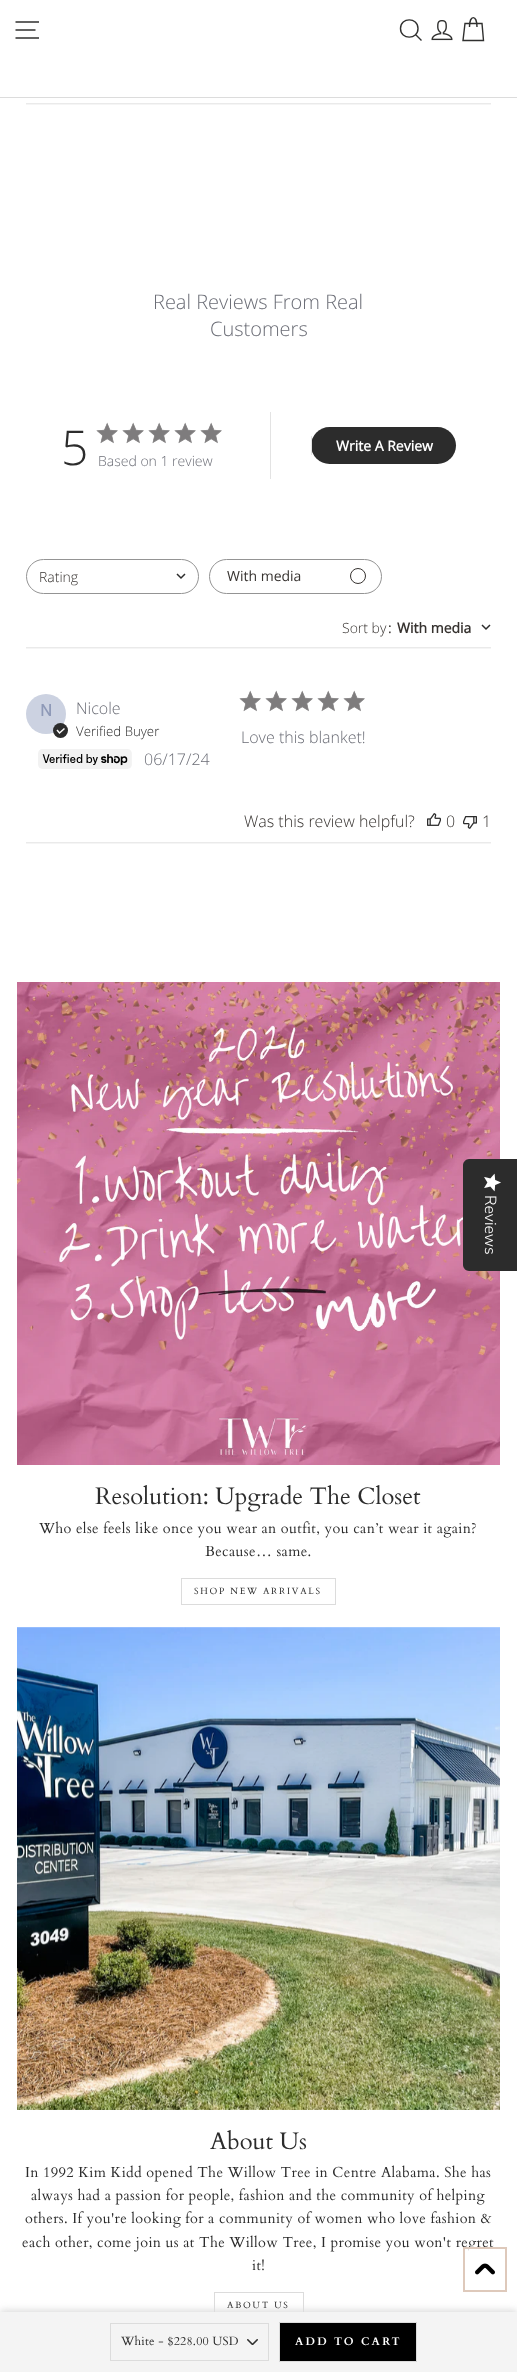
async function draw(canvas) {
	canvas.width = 517;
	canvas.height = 2372;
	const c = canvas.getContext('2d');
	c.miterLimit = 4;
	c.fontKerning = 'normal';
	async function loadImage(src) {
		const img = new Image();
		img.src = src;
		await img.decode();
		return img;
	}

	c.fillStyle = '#fff';
	c.fillRect(0, 0, 517, 2372);
	c.fillStyle = '#dcdcdc';
	c.fillRect(0, 97, 517, 1);
	c.beginPath();
	c.moveTo(15.5, 22);
	c.lineTo(39, 22);
	c.moveTo(15.5, 30);
	c.lineTo(35.5, 30);
	c.moveTo(15.5, 38);
	c.lineTo(39, 38);
	c.strokeStyle = '#30302f';
	c.lineWidth = 1.4;
	c.stroke();
	c.beginPath();
	c.moveTo(418, 28.5);
	c.bezierCurveTo(418, 40, 400.5, 40, 400.5, 28.5);
	c.bezierCurveTo(400.5, 17, 418, 17, 418, 28.5);
	c.closePath();
	c.moveTo(421.5, 40.5);
	c.lineTo(415.5, 34.5);
	c.stroke();
	c.drawImage(await loadImage('img1.png'), 431, 20, 22, 21);
	c.beginPath();
	c.moveTo(469.5, 27);
	c.bezierCurveTo(469.5, 14.5, 477, 14.5, 477, 27);
	c.moveTo(465, 23.5);
	c.lineTo(482, 23.5);
	c.lineTo(483.5, 40.5);
	c.lineTo(463, 40.5);
	c.closePath();
	c.stroke();
	c.drawImage(await loadImage('img2.png'), 26, 103, 465, 2);
	c.font = '300 20px Open Sans';
	c.fillStyle = '#6b6d76';
	c.fillText('Real Reviews From Real', 153, 309);
	c.fillText('Customers', 210, 336);
	c.font = '300 48px Open Sans';
	c.fillStyle = '#2c2c2c';
	c.fillText('5', 61, 465);
	c.drawImage(await loadImage('img3.png'), 96, 422, 22, 22);
	c.drawImage(await loadImage('img3.png'), 122, 422, 22, 22);
	c.drawImage(await loadImage('img3.png'), 148, 422, 22, 22);
	c.drawImage(await loadImage('img3.png'), 174, 422, 22, 22);
	c.drawImage(await loadImage('img3.png'), 200, 422, 22, 22);
	c.font = '300 14px Open Sans';
	c.fillStyle = '#6b6d76';
	c.fillText('Based on 1 review', 98, 466);
	c.fillStyle = '#e3e3e3';
	c.fillRect(270, 412, 1, 67);
	c.fillStyle = '#2c2c2c';
	c.beginPath();
	c.roundRect(311, 427, 145, 37, 18.5);
	c.fill();
	c.fillStyle = '#e3e3e3';
	c.fillRect(311, 436, 1, 19);
	c.font = 'bold 14px Open Sans';
	c.fillStyle = '#fff';
	c.fillText('Write A Review', 336, 451);
	c.beginPath();
	c.roundRect(26.5, 559.5, 172, 34, 17);
	c.strokeStyle = '#949494';
	c.lineWidth = 1;
	c.stroke();
	c.beginPath();
	c.moveTo(177, 574);
	c.lineTo(181, 578);
	c.lineTo(185, 574);
	c.strokeStyle = '#2c2c2c';
	c.lineWidth = 1.5;
	c.stroke();
	c.font = '300 14px Open Sans';
	c.fillStyle = '#373330';
	c.fillText('Rating', 39, 582);
	c.beginPath();
	c.roundRect(209.5, 559.5, 172, 34, 17);
	c.strokeStyle = '#949494';
	c.lineWidth = 1;
	c.stroke();
	c.font = '14px Open Sans';
	c.fillText('With media', 227, 581);
	c.beginPath();
	c.arc(358, 576, 7.5, 0, 2 * Math.PI);
	c.strokeStyle = '#373330';
	c.stroke();
	c.font = '300 14px Open Sans';
	c.fillText('Sort by', 342, 633);
	c.font = '14px Open Sans';
	c.fillText(':', 388, 633);
	c.font = 'bold 14px Open Sans';
	c.fillText('With media', 397, 633);
	c.beginPath();
	c.moveTo(482, 625);
	c.lineTo(486, 629);
	c.lineTo(490, 625);
	c.strokeStyle = '#2c2c2c';
	c.lineWidth = 1.5;
	c.stroke();
	c.drawImage(await loadImage('img2.png'), 26, 647, 465, 2);
	c.fillStyle = '#ccd2e1';
	c.beginPath();
	c.arc(46, 714, 20, 0, 2 * Math.PI);
	c.fill();
	c.font = 'bold 16px Open Sans';
	c.fillStyle = '#8e99b7';
	c.fillText('N', 40, 716);
	c.fillStyle = '#2c2c2c';
	c.beginPath();
	c.arc(60.5, 730.5, 7.5, 0, 2 * Math.PI);
	c.fill();
	c.beginPath();
	c.moveTo(57, 730);
	c.lineTo(59.5, 733);
	c.lineTo(64.5, 728.5);
	c.strokeStyle = '#fff';
	c.stroke();
	c.font = '300 16px Open Sans';
	c.fillStyle = '#6b6d76';
	c.fillText('Nicole', 76, 714);
	c.font = '300 13.25px Open Sans';
	c.fillStyle = '#2c2c2c';
	c.fillText('Verified Buyer', 76, 736);
	c.drawImage(await loadImage('img4.png'), 239, 690, 22, 22);
	c.drawImage(await loadImage('img4.png'), 265, 690, 22, 22);
	c.drawImage(await loadImage('img4.png'), 291, 690, 22, 22);
	c.drawImage(await loadImage('img4.png'), 317, 690, 22, 22);
	c.drawImage(await loadImage('img4.png'), 343, 690, 22, 22);
	c.font = '300 16px Open Sans';
	c.fillStyle = '#6b6d76';
	c.fillText('Love this blanket!', 241, 743);
	c.drawImage(await loadImage('img5.png'), 38, 749, 94, 20);
	c.fillText('06/17/24', 144, 765);
	c.fillStyle = '#373330';
	c.fillText('Was this review helpful?', 244, 827);
	c.drawImage(await loadImage('img6.png'), 427, 813, 14, 13);
	c.fillText('0', 446, 827);
	c.drawImage(await loadImage('img7.png'), 463, 816, 14, 13);
	c.fillText('1', 482, 827);
	c.drawImage(await loadImage('img2.png'), 26, 842, 465, 2);
	c.strokeStyle = '#dcdcdc';
	c.lineWidth = 1;
	c.strokeRect(214.5, 2292.5, 89, 26);
	c.fillStyle = '#dcdcdc';
	c.filter = 'blur(3.5px)';
	c.beginPath();
	c.rect(0, 2310, 517, 60);
	c.fill();
	c.filter = 'none';
	c.fillStyle = '#f4f4f4';
	c.fillRect(0, 2312, 517, 60);
	c.drawImage(await loadImage('img8.png'), 247, 2339, 11, 6);
	c.strokeRect(110.5, 2323.5, 158, 37);
	c.letterSpacing = '0.25px';
	c.font = '12px Cardo';
	c.fillStyle = '#2c2c2c';
	c.fillText('White - $228.00 USD', 121, 2345);
	c.fillStyle = '#000';
	c.beginPath();
	c.rect(279.5, 2322.5, 137, 39);
	c.fill();
	c.stroke();
	c.letterSpacing = '2.25px';
	c.font = 'bold 11px Cardo';
	c.fillStyle = '#fff';
	c.fillText('ADD TO CART', 295, 2345);
	c.drawImage(await loadImage('img9.png'), 17, 982, 483, 483);
	c.letterSpacing = '0px';
	c.font = '23.8px Cardo';
	c.fillStyle = '#2c2c2c';
	c.fillText('Resolution: Upgrade The Closet', 95, 1504);
	c.letterSpacing = '0.35px';
	c.font = '14.45px Cardo';
	c.fillText('Who else feels like once you wear an outfit, you can’t wear it again?', 39, 1533);
	c.fillText('Because… same.', 205, 1556);
	c.strokeRect(181.5, 1578.5, 154, 26);
	c.letterSpacing = '1.75px';
	c.font = '9px Cardo';
	c.fillText('SHOP NEW ARRIVALS', 194, 1594);
	c.drawImage(await loadImage('img10.png'), 17, 1627, 483, 483);
	c.letterSpacing = '0px';
	c.font = '23.8px Cardo';
	c.fillText('About Us', 210, 2149);
	c.letterSpacing = '0.35px';
	c.font = '14.45px Cardo';
	for (const [text, x, y] of [
		['In 1992 Kim Kidd opened The Willow Tree in Centre Alabama. She has', 25, 2177],
		['always had a passion for people, fashion and the community of helping', 31, 2200],
		['others. If you\'re looking for a community of women who love fashion &', 25, 2223],
		['each other, come join us at The Willow Tree, I promise you won\'t regret', 22, 2247],
		['it!', 252, 2270],
	]) {
		c.fillText(text, x, y);
	}
	c.letterSpacing = '1.75px';
	c.font = '9px Cardo';
	c.fillText('ABOUT US', 227, 2308);
	c.fillStyle = '#fff';
	c.fillRect(469, 2249, 8, 3);
	c.strokeStyle = '#dec9bb';
	c.lineWidth = 2;
	c.strokeRect(464, 2248, 42, 43);
	c.drawImage(await loadImage('img11.png'), 475, 2263, 20, 12);
	c.fillStyle = '#2c2c2c';
	c.beginPath();
	c.moveTo(517, 1159);
	c.lineTo(517, 1271);
	c.lineTo(469, 1271);
	c.bezierCurveTo(466, 1271, 463, 1268, 463, 1265);
	c.lineTo(463, 1165);
	c.bezierCurveTo(463, 1162, 466, 1159, 469, 1159);
	c.closePath();
	c.fill();
	c.drawImage(await loadImage('img12.png'), 484, 1173, 17, 19);
	c.letterSpacing = '0px';
	c.font = '300 16px Nunito Sans';
	c.fillStyle = '#fff';
	c.save();
	c.translate(485, 1195);
	c.rotate(90 * Math.PI / 180);
	c.fillText('Reviews', 0, 0);
	c.restore();
}

draw(document.querySelector('canvas'));
